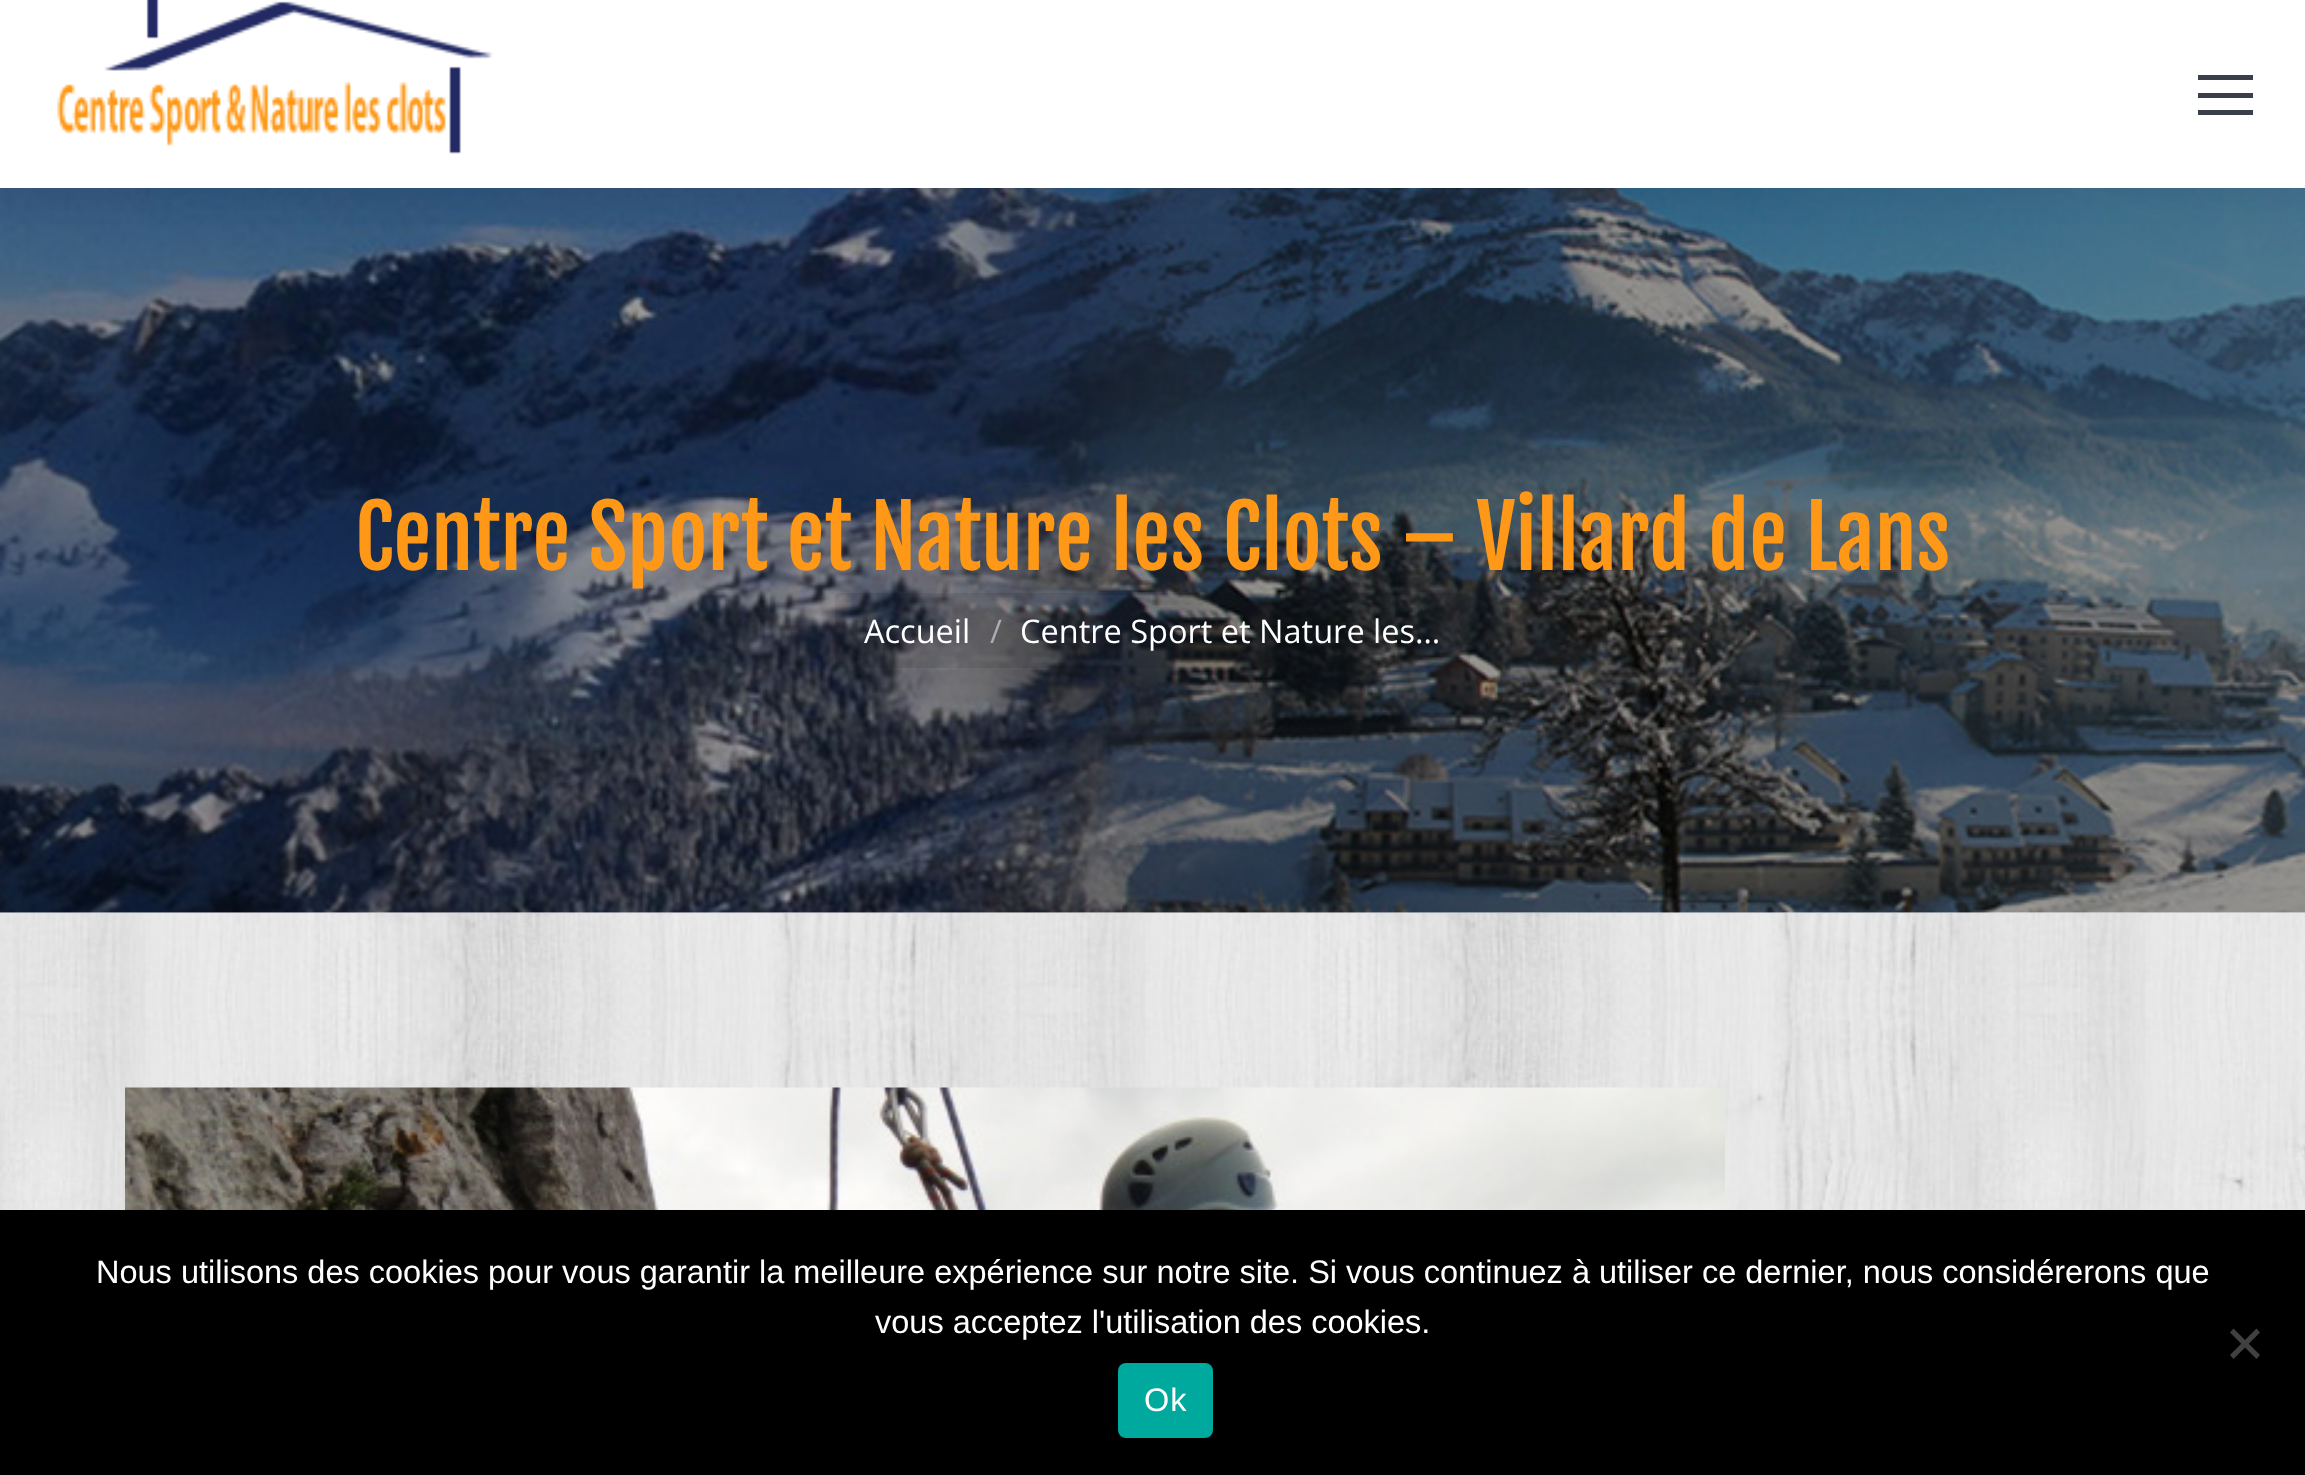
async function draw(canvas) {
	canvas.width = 2305;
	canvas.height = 1475;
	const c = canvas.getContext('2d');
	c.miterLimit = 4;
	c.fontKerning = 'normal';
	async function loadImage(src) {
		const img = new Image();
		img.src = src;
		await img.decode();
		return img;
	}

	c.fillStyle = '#fff';
	c.fillRect(0, 0, 2305, 1475);
	c.drawImage(await loadImage('img1.png'), 0, 913, 2305, 297);
	c.fillStyle = '#f7f7f7';
	c.fillRect(0, 912, 2305, 1);
	c.drawImage(await loadImage('img3.png'), 0, 188, 2305, 725);
	c.fillStyle = '#00000012';
	c.filter = 'blur(19px)';
	c.beginPath();
	c.rect(-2, -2, 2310, 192);
	c.fill();
	c.filter = 'none';
	c.fillStyle = '#fff';
	c.fillRect(0, 0, 2305, 188);
	c.drawImage(await loadImage('img2.png'), 56, 0, 437, 154);
	for (const [x, y, w, h, color] of [
		[2198, 75, 55, 5, '#3b3f4a'],
		[2198, 93, 55, 5, '#3b3f4a'],
		[2198, 110, 55, 5, '#3b3f4a'],
	]) {
		c.fillStyle = color;
		c.fillRect(x, y, w, h);
	}
	c.font = '85px Fjalla One';
	c.fillStyle = '#ff9817';
	c.fillText('Centre Sport et Nature les Clots – Villard de Lans', 355, 570);
	c.fillStyle = '#0f12131a';
	c.beginPath();
	c.roundRect(835, 593, 635, 75, 5);
	c.fill();
	c.font = '32.5px Open Sans';
	c.fillStyle = '#fff';
	c.fillText('Accueil', 864, 643);
	c.fillStyle = '#adadaf';
	c.fillText('/', 990, 643);
	c.fillStyle = '#fff';
	c.fillText('Centre Sport et Nature les…', 1020, 643);
	c.drawImage(await loadImage('img4.png'), 125, 1087, 1600, 123);
	c.fillStyle = '#000';
	c.fillRect(0, 1210, 2305, 265);
	c.font = '32.5px Liberation Sans';
	c.fillStyle = '#fff';
	c.fillText('Nous utilisons des cookies pour vous garantir la meilleure expérience sur notre site. Si vous continuez à utiliser ce dernier, nous considérerons que', 96, 1283);
	c.fillText('vous acceptez l\'utilisation des cookies.', 875, 1333);
	c.fillStyle = '#404040';
	c.beginPath();
	c.moveTo(2256.5, 1328.5);
	c.lineTo(2260, 1332.5);
	c.lineTo(2233.5, 1359);
	c.lineTo(2230, 1355);
	c.closePath();
	c.fill();
	c.beginPath();
	c.moveTo(2230, 1332.5);
	c.lineTo(2233.5, 1328.5);
	c.lineTo(2260, 1355);
	c.lineTo(2256.5, 1359);
	c.closePath();
	c.fill();
	c.fillStyle = '#00a99d';
	c.beginPath();
	c.roundRect(1118, 1363, 95, 75, 8);
	c.fill();
	c.letterSpacing = '1px';
	c.fillStyle = '#fff';
	c.fillText('Ok', 1144, 1411);
}

draw(document.querySelector('canvas'));
